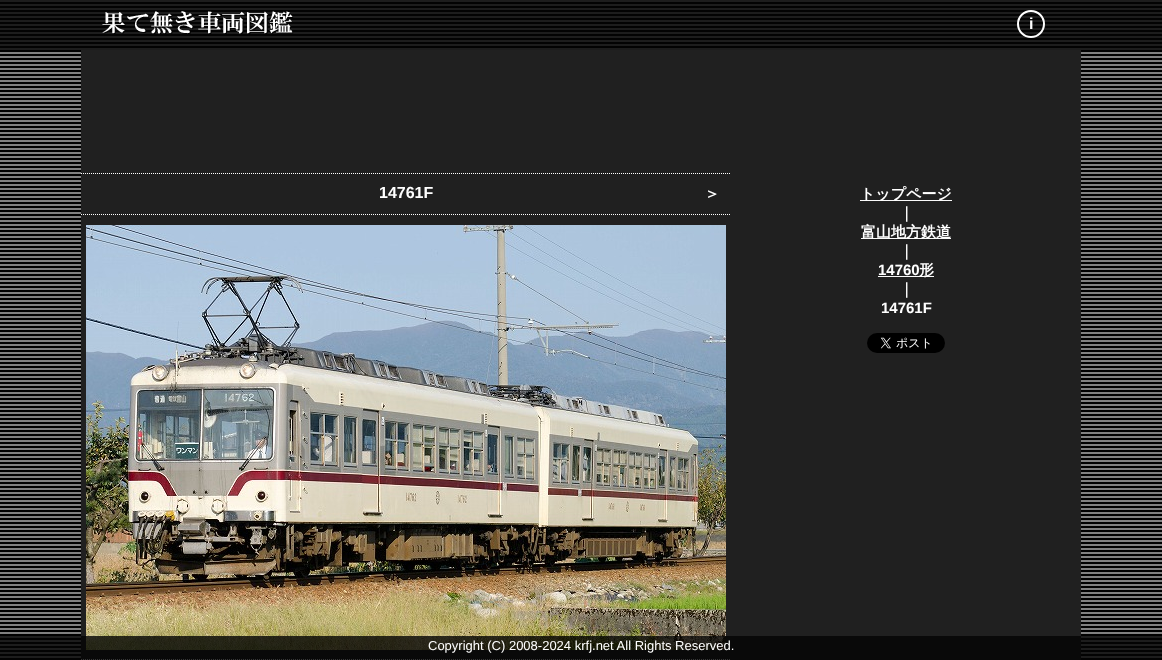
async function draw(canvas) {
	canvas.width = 1162;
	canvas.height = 660;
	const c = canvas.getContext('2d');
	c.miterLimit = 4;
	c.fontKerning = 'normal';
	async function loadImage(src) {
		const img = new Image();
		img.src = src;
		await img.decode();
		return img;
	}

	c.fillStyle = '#fff';
	c.fillRect(0, 0, 1162, 660);
	c.drawImage(await loadImage('img1.png'), 0, 0, 1162, 660);
	c.fillStyle = '#040404cc';
	c.fillRect(0, 0, 1162, 50);
	c.drawImage(await loadImage('img2.png'), 102, 11, 192, 23);
	c.beginPath();
	c.arc(1031, 24, 13, 0, 2 * Math.PI);
	c.strokeStyle = '#fff';
	c.lineWidth = 2;
	c.stroke();
	c.font = 'bold 16px Liberation Sans';
	c.fillStyle = '#fff';
	c.fillText('i', 1029, 29);
	c.fillStyle = '#202020';
	c.fillRect(81, 50, 1000, 610);
	c.beginPath();
	c.moveTo(81, 173.5);
	c.lineTo(731, 173.5);
	c.lineWidth = 1;
	c.setLineDash([1, 1]);
	c.stroke();
	c.beginPath();
	c.moveTo(81, 214.5);
	c.lineTo(731, 214.5);
	c.stroke();
	c.fillStyle = '#fff';
	c.fillText('14761F', 379, 198);
	c.font = 'bold 16px WenQuanYi Zen Hei';
	c.fillText('＞', 704, 199);
	c.drawImage(await loadImage('img3.png'), 86, 225, 640, 425);
	c.beginPath();
	c.moveTo(81, 659.5);
	c.lineTo(731, 659.5);
	c.stroke();
	c.fillStyle = '#fafafa';
	c.fillRect(860, 200, 92, 1);
	c.font = 'bold 15px WenQuanYi Zen Hei';
	c.fillStyle = '#fff';
	c.fillText('トップページ', 860, 199);
	c.fillText('｜', 899, 218);
	c.fillStyle = '#fafafa';
	c.fillRect(861, 238, 90, 1);
	c.fillStyle = '#fff';
	c.fillText('富山地方鉄道', 861, 237);
	c.fillText('｜', 899, 256);
	c.font = 'bold 15px Liberation Sans';
	c.fillText('14760', 878, 275);
	c.fillStyle = '#fafafa';
	c.fillRect(878, 276, 56, 1);
	c.font = 'bold 15px WenQuanYi Zen Hei';
	c.fillStyle = '#fff';
	c.fillText('形', 919, 275);
	c.fillText('｜', 899, 294);
	c.font = 'bold 15px Liberation Sans';
	c.fillText('14761F', 881, 313);
	c.drawImage(await loadImage('img4.png'), 867, 333, 78, 20);
	c.fillStyle = '#040404cc';
	c.fillRect(0, 636, 1162, 24);
	c.font = '13px Liberation Sans';
	c.fillStyle = '#fff';
	c.fillText('Copyright (C) 2008-2024 krfj.net All Rights Reserved.', 428, 650);
}

draw(document.querySelector('canvas'));
